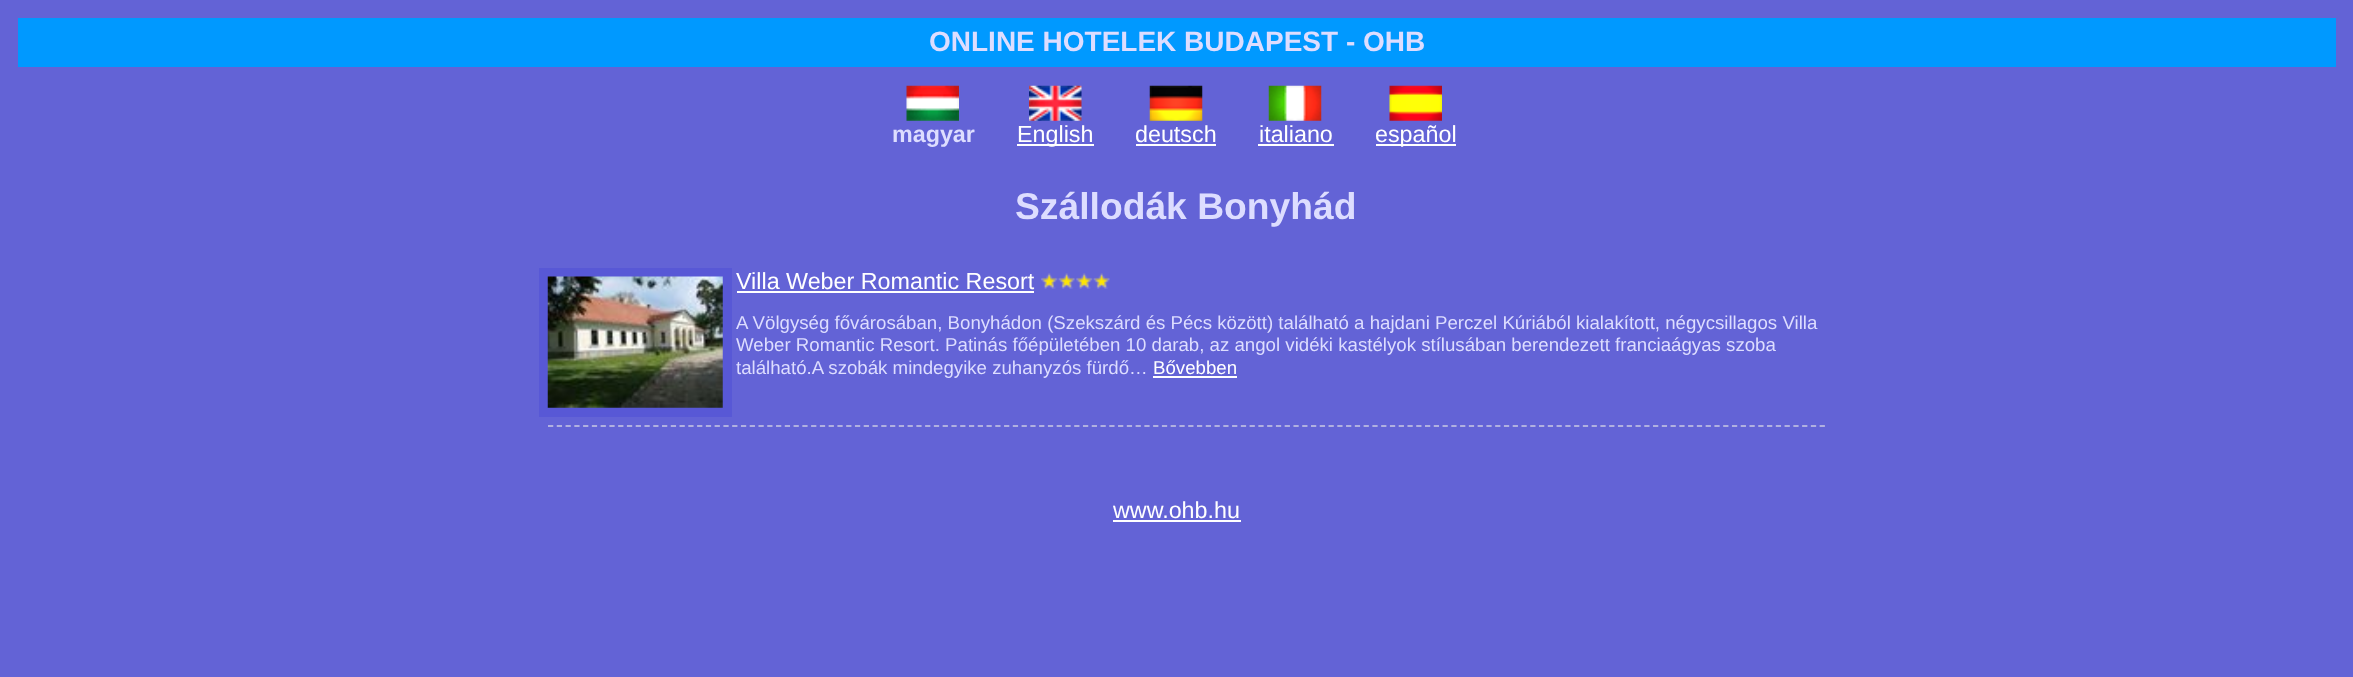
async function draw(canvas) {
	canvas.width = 2353;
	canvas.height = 677;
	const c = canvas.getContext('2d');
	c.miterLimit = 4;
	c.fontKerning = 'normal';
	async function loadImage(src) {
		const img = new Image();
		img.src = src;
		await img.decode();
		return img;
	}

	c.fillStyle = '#6363d6';
	c.fillRect(0, 0, 2353, 677);
	c.fillStyle = '#09f';
	c.fillRect(18, 18, 2318, 49);
	c.font = 'bold 28px Liberation Sans';
	c.fillStyle = '#ddf';
	c.fillText('ONLINE HOTELEK BUDAPEST - OHB', 929, 51);
	c.drawImage(await loadImage('img1.png'), 906, 85, 53, 36);
	c.font = 'bold 23.3px Liberation Sans';
	c.fillText('magyar', 892, 142);
	c.drawImage(await loadImage('img2.png'), 1029, 85, 53, 36);
	c.fillStyle = '#fff';
	c.fillRect(1017, 144, 77, 2);
	c.font = '23.3px Liberation Sans';
	c.fillText('English', 1017, 142);
	c.drawImage(await loadImage('img3.png'), 1149, 85, 54, 36);
	c.fillText('deutsch', 1135, 142);
	c.fillRect(1136, 144, 80, 2);
	c.drawImage(await loadImage('img4.png'), 1268, 85, 54, 36);
	c.fillText('italiano', 1259, 142);
	c.fillRect(1258, 144, 76, 2);
	c.drawImage(await loadImage('img5.png'), 1389, 85, 53, 36);
	c.fillRect(1376, 144, 80, 2);
	c.fillText('español', 1375, 142);
	c.font = 'bold 37.25px Liberation Sans';
	c.fillStyle = '#ddf';
	c.fillText('Szállodák Bonyhád', 1015, 219);
	c.fillStyle = '#5858d6';
	c.fillRect(539, 268, 193, 149);
	c.drawImage(await loadImage('img6.png'), 547, 276, 176, 132);
	c.font = '23.3px Liberation Sans';
	c.fillStyle = '#fff';
	c.fillText('Villa Weber Romantic Resort', 736, 289);
	c.fillRect(737, 291, 297, 2);
	c.drawImage(await loadImage('img7.png'), 1041, 273, 69, 16);
	c.font = '18.67px Liberation Sans';
	c.fillStyle = '#ddf';
	for (const [text, x, y] of [
		['A Völgység fővárosában, Bonyhádon (Szekszárd és Pécs között) található a hajdani Perczel Kúriából kialakított, négycsillagos Villa', 736, 329],
		['Weber Romantic Resort. Patinás főépületében 10 darab, az angol vidéki kastélyok stílusában berendezett franciaágyas szoba', 736, 351],
		['található.A szobák mindegyike zuhanyzós fürdő…', 736, 374],
	]) {
		c.fillText(text, x, y);
	}
	c.fillStyle = '#fff';
	c.fillText('Bővebben', 1153, 374);
	c.fillRect(1153, 376, 84, 2);
	c.beginPath();
	c.moveTo(548, 426);
	c.lineTo(1825, 426);
	c.strokeStyle = '#b0b0e0';
	c.lineWidth = 1.8;
	c.setLineDash([5.25, 3.52]);
	c.stroke();
	c.font = '23.3px Liberation Sans';
	c.fillText('www.ohb.hu', 1113, 518);
	c.fillRect(1113, 520, 128, 2);
}

draw(document.querySelector('canvas'));
